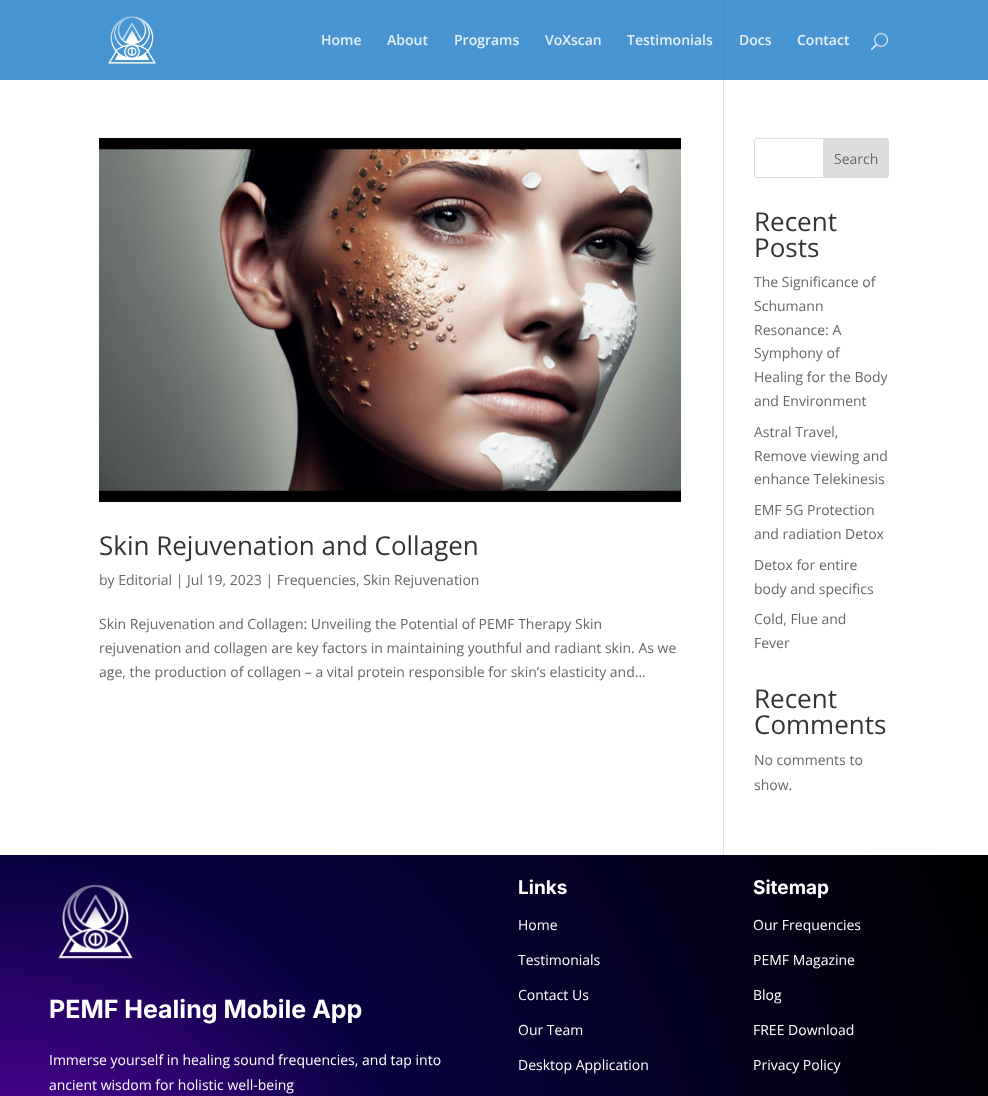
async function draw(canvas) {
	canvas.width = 988;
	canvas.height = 1096;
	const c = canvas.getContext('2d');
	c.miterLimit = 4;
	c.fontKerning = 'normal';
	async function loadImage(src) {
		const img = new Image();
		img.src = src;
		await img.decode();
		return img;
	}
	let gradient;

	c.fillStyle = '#fff';
	c.fillRect(0, 0, 988, 1096);
	c.fillStyle = '#4995d2';
	c.fillRect(0, 0, 988, 80);
	c.drawImage(await loadImage('img1.png'), 108, 16, 48, 48);
	c.font = '600 14px Open Sans';
	c.fillStyle = '#e5f0f9';
	for (const [text, x, y] of [
		['Home', 321, 45],
		['About', 387, 45],
		['Programs', 454, 45],
		['VoXscan', 545, 45],
		['Testimonials', 627, 45],
		['Docs', 739, 45],
		['Contact', 797, 45],
	]) {
		c.fillText(text, x, y);
	}
	c.drawImage(await loadImage('img2.png'), 871, 33, 17, 18);
	c.fillStyle = '#e2e2e2';
	c.fillRect(723, 80, 1, 775);
	c.fillStyle = '#428dcb';
	c.fillRect(723, 0, 1, 80);
	c.drawImage(await loadImage('img3.png'), 99, 138, 582, 364);
	c.font = '26px Open Sans';
	c.fillStyle = '#333';
	c.fillText('Skin Rejuvenation and Collagen', 99, 555);
	c.font = '14px Open Sans';
	c.fillStyle = '#666';
	for (const [text, x, y] of [
		['by Editorial | Jul 19, 2023 | Frequencies, Skin Rejuvenation', 99, 585],
		['Skin Rejuvenation and Collagen: Unveiling the Potential of PEMF Therapy Skin', 99, 629],
		['rejuvenation and collagen are key factors in maintaining youthful and radiant skin. As we', 99, 653],
		['age, the production of collagen – a vital protein responsible for skin’s elasticity and...', 99, 677],
	]) {
		c.fillText(text, x, y);
	}
	c.beginPath();
	c.roundRect(754.5, 138.5, 134, 39, 2.5);
	c.strokeStyle = '#ddd';
	c.stroke();
	c.fillStyle = '#ddd';
	c.beginPath();
	c.roundRect(823.5, 138.5, 65, 39, [0, 2.5, 2.5, 0]);
	c.fill();
	c.stroke();
	c.fillStyle = '#666';
	c.fillText('Search', 834, 164);
	c.font = '26px Open Sans';
	c.fillStyle = '#333';
	c.fillText('Recent', 754, 231);
	c.fillText('Posts', 754, 257);
	c.font = '14px Open Sans';
	c.fillStyle = '#666';
	for (const [text, x, y] of [
		['The Significance of', 754, 287],
		['Schumann', 754, 311],
		['Resonance: A', 754, 335],
		['Symphony of', 754, 358],
		['Healing for the Body', 754, 382],
		['and Environment', 754, 406],
		['Astral Travel,', 754, 437],
		['Remove viewing and', 754, 461],
		['enhance Telekinesis', 754, 484],
		['EMF 5G Protection', 754, 515],
		['and radiation Detox', 754, 539],
		['Detox for entire', 754, 570],
		['body and specifics', 754, 594],
		['Cold, Flue and', 754, 624],
		['Fever', 754, 648],
	]) {
		c.fillText(text, x, y);
	}
	c.font = '26px Open Sans';
	c.fillStyle = '#333';
	c.fillText('Recent', 754, 708);
	c.fillText('Comments', 754, 734);
	c.font = '14px Open Sans';
	c.fillStyle = '#666';
	c.fillText('No comments to', 754, 765);
	c.fillText('show.', 754, 790);
	gradient = c.createRadialGradient(0, 1286, 0, 0, 1286, 1078);
	gradient.addColorStop(0, '#6f00c1');
	gradient.addColorStop(0.4, '#07023f');
	gradient.addColorStop(1, '#000');
	c.fillStyle = gradient;
	c.fillRect(0, 855, 988, 241);
	c.drawImage(await loadImage('img4.png'), 58, 884, 75, 75);
	c.font = 'bold 25px Inter';
	c.fillStyle = '#fff';
	c.fillText('PEMF Healing Mobile App', 49, 1018);
	c.font = '14px Open Sans';
	c.fillText('Immerse yourself in healing sound frequencies, and tap into', 49, 1065);
	c.fillText('ancient wisdom for holistic well-being', 49, 1090);
	c.font = 'bold 19px Inter';
	c.fillText('Links', 518, 894);
	c.font = '14px Open Sans';
	for (const [text, x, y] of [
		['Home', 518, 930],
		['Testimonials', 518, 965],
		['Contact Us', 518, 1000],
		['Our Team', 518, 1035],
		['Desktop Application', 518, 1070],
	]) {
		c.fillText(text, x, y);
	}
	c.font = 'bold 19px Inter';
	c.fillText('Sitemap', 753, 894);
	c.font = '14px Open Sans';
	for (const [text, x, y] of [
		['Our Frequencies', 753, 930],
		['PEMF Magazine', 753, 965],
		['Blog', 753, 1000],
		['FREE Download', 753, 1035],
		['Privacy Policy', 753, 1070],
	]) {
		c.fillText(text, x, y);
	}
}

draw(document.querySelector('canvas'));
